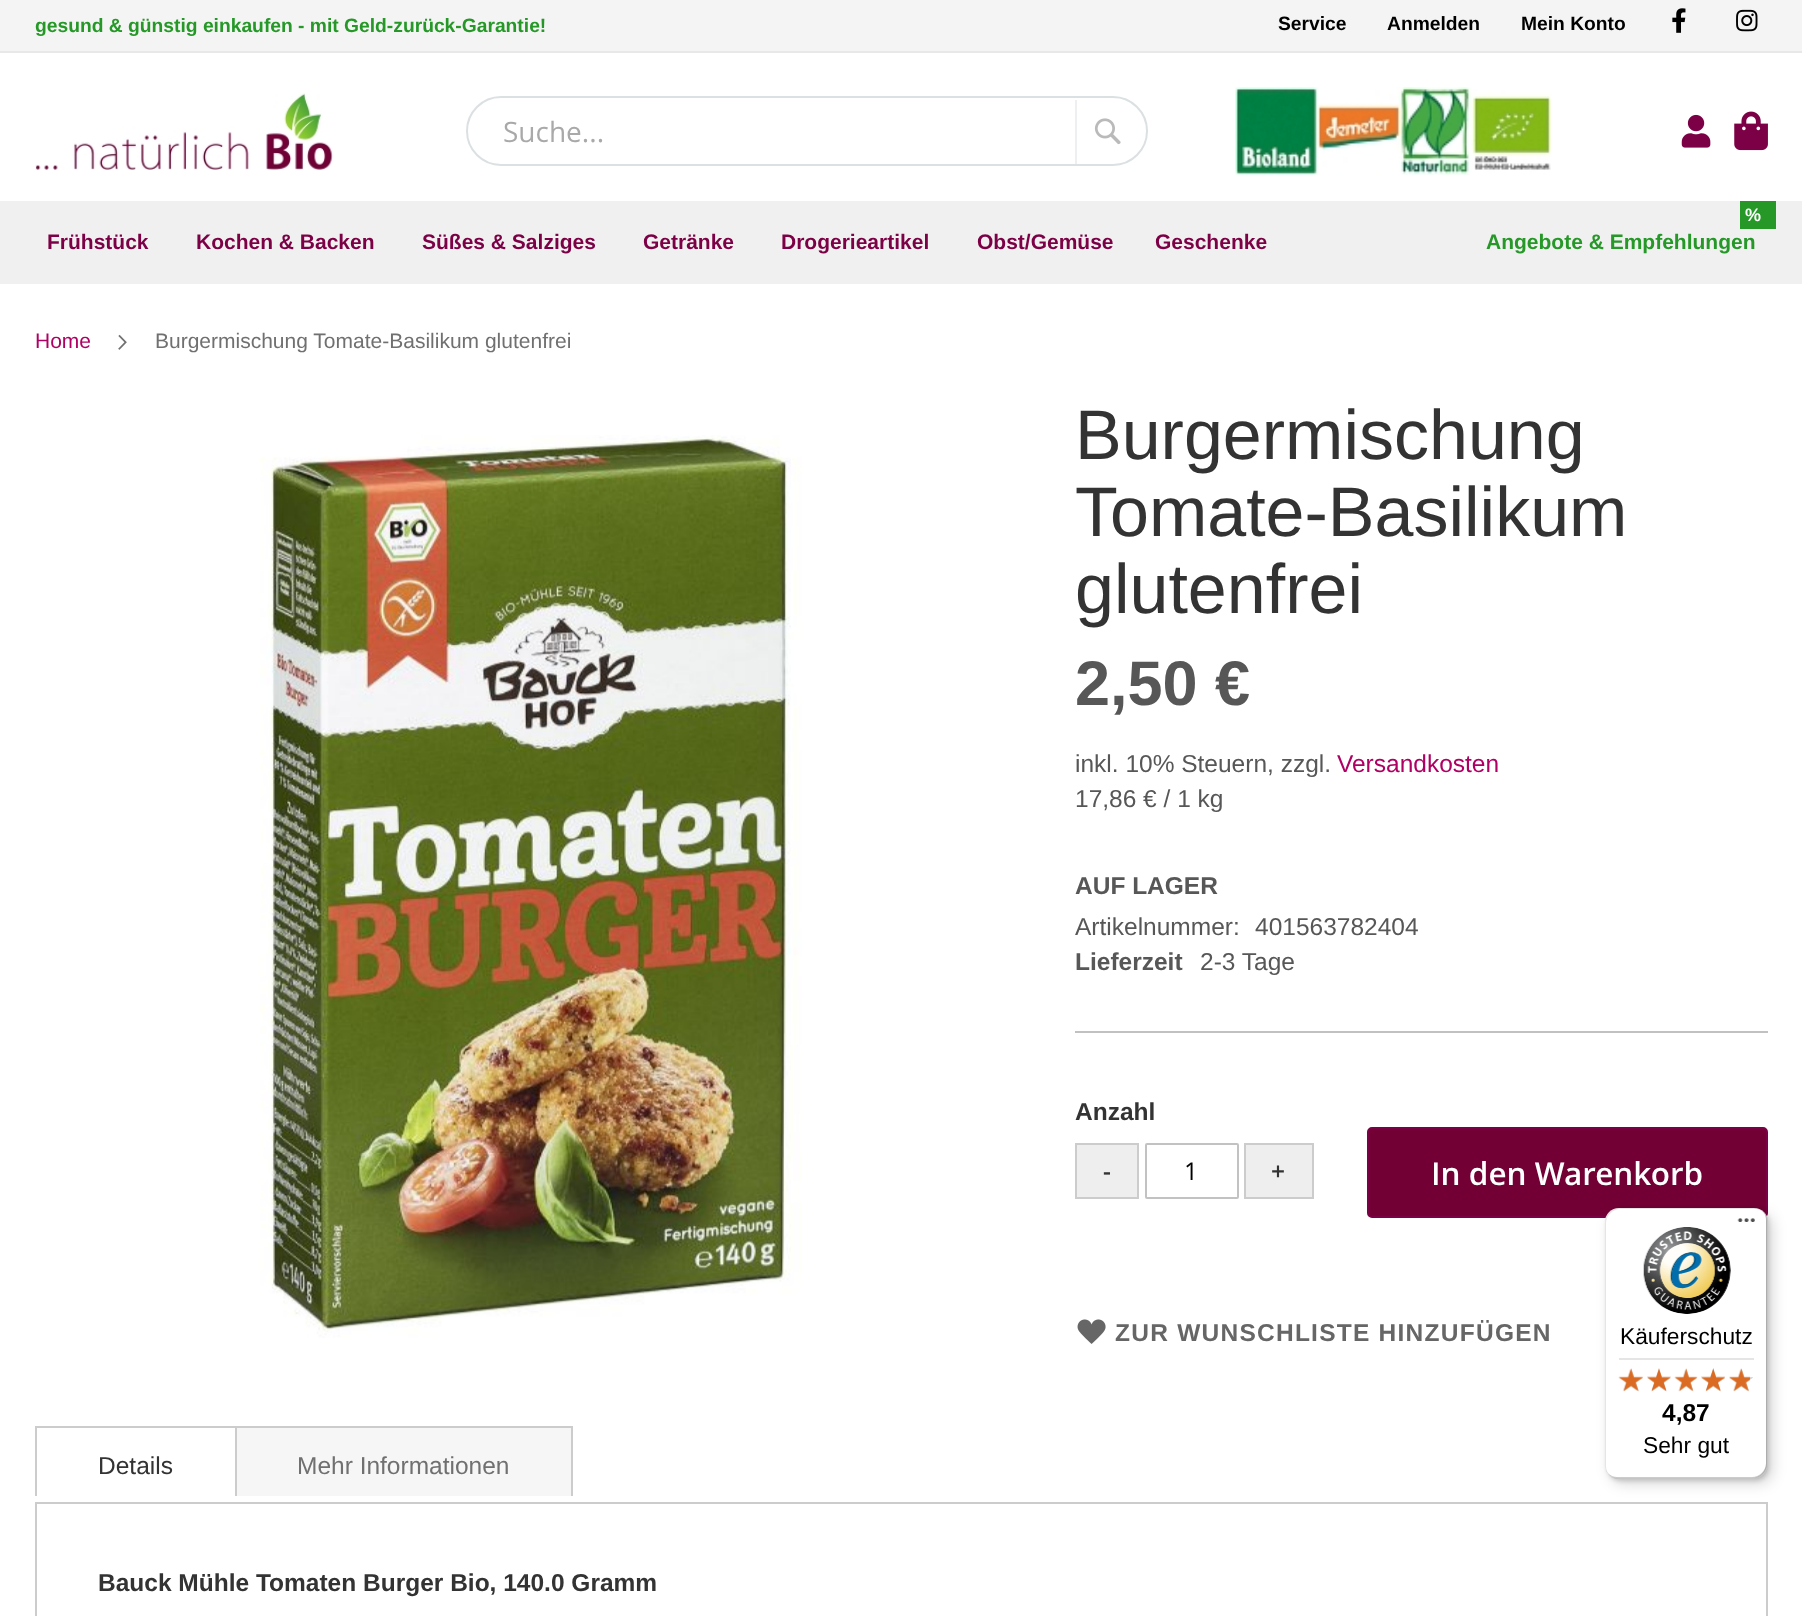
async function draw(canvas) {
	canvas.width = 1802;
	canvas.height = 1616;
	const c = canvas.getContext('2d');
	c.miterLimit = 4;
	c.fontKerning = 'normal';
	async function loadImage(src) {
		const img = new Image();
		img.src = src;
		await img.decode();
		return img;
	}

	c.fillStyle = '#fff';
	c.fillRect(0, 0, 1802, 1616);
	c.fillStyle = '#f4f4f4';
	c.fillRect(0, 0, 1802, 51);
	c.fillStyle = '#e8e8e8';
	c.fillRect(0, 51, 1802, 2);
	c.font = 'bold 19.25px Liberation Sans';
	c.fillStyle = '#259827';
	c.fillText('gesund & günstig einkaufen - mit Geld-zurück-Garantie!', 35, 32);
	c.fillStyle = '#000';
	for (const [text, x, y] of [
		['Service', 1278, 30],
		['Anmelden', 1387, 30],
		['Mein Konto', 1521, 30],
	]) {
		c.fillText(text, x, y);
	}
	c.drawImage(await loadImage('img1.png'), 1672, 8, 14, 25);
	c.drawImage(await loadImage('img2.png'), 1736, 9, 22, 23);
	c.drawImage(await loadImage('img3.png'), 35, 93, 298, 77);
	c.beginPath();
	c.roundRect(467, 97, 680, 68, 34);
	c.strokeStyle = '#dbe0e2';
	c.lineWidth = 2;
	c.stroke();
	c.font = '28px Open Sans';
	c.fillStyle = '#a9a9a9';
	c.fillText('Suche...', 503, 142);
	c.fillStyle = '#dbe0e280';
	c.fillRect(1075, 100, 2, 65);
	c.drawImage(await loadImage('img4.png'), 1094, 118, 27, 27);
	c.drawImage(await loadImage('img5.png'), 1235, 87, 316, 88);
	c.drawImage(await loadImage('img6.png'), 1681, 114, 30, 34);
	c.drawImage(await loadImage('img7.png'), 1734, 111, 34, 40);
	c.fillStyle = '#f0f0f0';
	c.fillRect(0, 201, 1802, 83);
	c.font = 'bold 21px Liberation Sans';
	c.fillStyle = '#7c0046';
	for (const [text, x, y] of [
		['Frühstück', 47, 249],
		['Kochen & Backen', 196, 249],
		['Süßes & Salziges', 422, 249],
		['Getränke', 643, 249],
		['Drogerieartikel', 781, 249],
		['Obst/Gemüse', 977, 249],
		['Geschenke', 1155, 249],
	]) {
		c.fillText(text, x, y);
	}
	c.fillStyle = '#259827';
	c.fillRect(1740, 201, 36, 28);
	c.font = 'bold 18px Liberation Sans';
	c.fillStyle = '#fff';
	c.fillText('%', 1745, 221);
	c.font = 'bold 21px Liberation Sans';
	c.fillStyle = '#259827';
	c.fillText('Angebote & Empfehlungen', 1486, 249);
	c.font = '21px Liberation Sans';
	c.fillStyle = '#af0063';
	c.fillText('Home', 35, 348);
	c.drawImage(await loadImage('img8.png'), 118, 334, 9, 16);
	c.fillStyle = '#707070';
	c.fillText('Burgermischung Tomate-Basilikum glutenfrei', 155, 348);
	c.drawImage(await loadImage('img9.png'), 260, 435, 542, 903);
	c.font = '70px Liberation Sans';
	c.fillStyle = '#333';
	for (const [text, x, y] of [
		['Burgermischung', 1075, 459],
		['Tomate-Basilikum', 1075, 536],
		['glutenfrei', 1075, 613],
	]) {
		c.fillText(text, x, y);
	}
	c.fillStyle = '#c1c1c1';
	c.fillRect(1075, 1031, 693, 2);
	c.font = 'bold 63px Liberation Sans';
	c.fillStyle = '#575757';
	c.fillText('2,50 €', 1075, 705);
	c.font = '24.5px Liberation Sans';
	c.fillText('inkl. 10% Steuern, zzgl.', 1075, 772);
	c.fillStyle = '#af0063';
	c.fillText('Versandkosten', 1337, 772);
	c.fillStyle = '#575757';
	c.fillText('17,86 € / 1 kg', 1075, 807);
	c.font = 'bold 24.5px Liberation Sans';
	c.fillText('AUF LAGER', 1075, 894);
	c.font = '24.5px Liberation Sans';
	c.fillText('Artikelnummer:', 1075, 935);
	c.fillText('401563782404', 1255, 935);
	c.font = 'bold 24.5px Liberation Sans';
	c.fillText('Lieferzeit', 1075, 970);
	c.font = '24.5px Liberation Sans';
	c.fillText('2-3 Tage', 1200, 970);
	c.font = 'bold 24.5px Liberation Sans';
	c.fillStyle = '#333';
	c.fillText('Anzahl', 1075, 1120);
	c.fillStyle = '#eee';
	c.beginPath();
	c.rect(1076, 1144, 62, 54);
	c.fill();
	c.strokeStyle = '#ccc';
	c.stroke();
	c.font = '600 24.5px Open Sans';
	c.fillStyle = '#333';
	c.fillText('-', 1103, 1180);
	c.beginPath();
	c.roundRect(1146, 1144, 92, 54, 1);
	c.strokeStyle = '#c2c2c2';
	c.stroke();
	c.font = '24.5px Open Sans';
	c.fillStyle = '#000';
	c.fillText('1', 1184, 1180);
	c.fillStyle = '#eee';
	c.beginPath();
	c.rect(1245, 1144, 68, 54);
	c.fill();
	c.strokeStyle = '#ccc';
	c.stroke();
	c.font = '600 24.5px Open Sans';
	c.fillStyle = '#333';
	c.fillText('+', 1271, 1180);
	c.fillStyle = '#730035';
	c.beginPath();
	c.roundRect(1368, 1128, 399, 89, 4);
	c.fill();
	c.strokeStyle = '#7c0046';
	c.stroke();
	c.font = '600 31.5px Open Sans';
	c.fillStyle = '#fff';
	c.fillText('In den Warenkorb', 1431, 1185);
	c.drawImage(await loadImage('img10.png'), 1077, 1319, 29, 25);
	c.letterSpacing = '1.25px';
	c.font = 'bold 24.5px Liberation Sans';
	c.fillStyle = '#666';
	c.fillText('ZUR WUNSCHLISTE HINZUFÜGEN', 1115, 1341);
	c.fillStyle = '#ccc';
	c.fillRect(35, 1426, 537, 2);
	c.fillRect(35, 1426, 2, 70);
	c.letterSpacing = '0px';
	c.font = '24.5px Liberation Sans';
	c.fillStyle = '#333';
	c.fillText('Details', 98, 1474);
	for (const [x, y, w, h, color] of [
		[237, 1428, 334, 68, '#f6f6f6'],
		[571, 1426, 2, 70, '#ccc'],
		[235, 1426, 2, 70, '#ccc'],
	]) {
		c.fillStyle = color;
		c.fillRect(x, y, w, h);
	}
	c.fillStyle = '#707070';
	c.fillText('Mehr Informationen', 297, 1474);
	c.strokeStyle = '#ccc';
	c.strokeRect(36, 1503, 1731, 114);
	c.font = 'bold 24.5px Liberation Sans';
	c.fillStyle = '#333';
	c.fillText('Bauck Mühle Tomaten Burger Bio, 140.0 Gramm', 98, 1591);
	c.fillStyle = '#00000026';
	c.filter = 'blur(7px)';
	c.beginPath();
	c.roundRect(1610, 1213, 163, 271, 14);
	c.fill();
	c.filter = 'none';
	c.filter = 'blur(2px)';
	c.beginPath();
	c.roundRect(1607, 1209, 162, 272, 14);
	c.fill();
	c.filter = 'none';
	c.fillStyle = '#fff';
	c.beginPath();
	c.roundRect(1605, 1208, 163, 271, 14);
	c.fill();
	c.fillStyle = '#0000001a';
	c.beginPath();
	c.moveTo(1620, 1209);
	c.lineTo(1755, 1209);
	c.bezierCurveTo(1759, 1209, 1763, 1211, 1765, 1214);
	c.bezierCurveTo(1763, 1210, 1759, 1208, 1754, 1208);
	c.lineTo(1619, 1208);
	c.bezierCurveTo(1611, 1208, 1605, 1214, 1605, 1222);
	c.lineTo(1605, 1465);
	c.bezierCurveTo(1605, 1470, 1607, 1474, 1611, 1476);
	c.bezierCurveTo(1608, 1474, 1606, 1470, 1606, 1466);
	c.lineTo(1606, 1223);
	c.bezierCurveTo(1606, 1216, 1613, 1209, 1620, 1209);
	c.closePath();
	c.fill();
	c.fillStyle = '#00000033';
	c.beginPath();
	c.moveTo(1609, 1474);
	c.bezierCurveTo(1611, 1477, 1615, 1479, 1619, 1479);
	c.lineTo(1754, 1479);
	c.bezierCurveTo(1762, 1479, 1768, 1473, 1768, 1465);
	c.lineTo(1768, 1222);
	c.bezierCurveTo(1768, 1217, 1766, 1213, 1762, 1211);
	c.bezierCurveTo(1765, 1213, 1766, 1216, 1766, 1220);
	c.lineTo(1766, 1463);
	c.bezierCurveTo(1766, 1471, 1759, 1477, 1752, 1477);
	c.lineTo(1617, 1477);
	c.bezierCurveTo(1614, 1477, 1611, 1476, 1609, 1474);
	c.closePath();
	c.fill();
	c.fillStyle = '#32323233';
	c.beginPath();
	c.moveTo(1608, 1473);
	c.bezierCurveTo(1610, 1477, 1614, 1479, 1619, 1479);
	c.lineTo(1754, 1479);
	c.bezierCurveTo(1762, 1479, 1768, 1473, 1768, 1465);
	c.lineTo(1768, 1222);
	c.bezierCurveTo(1768, 1217, 1766, 1213, 1762, 1211);
	c.bezierCurveTo(1765, 1213, 1766, 1217, 1766, 1220);
	c.lineTo(1766, 1464);
	c.bezierCurveTo(1766, 1471, 1760, 1478, 1752, 1478);
	c.lineTo(1618, 1478);
	c.bezierCurveTo(1614, 1478, 1610, 1476, 1608, 1473);
	c.closePath();
	c.fill();
	c.fillStyle = '#ffffff4d';
	c.beginPath();
	c.moveTo(1610, 1475);
	c.bezierCurveTo(1612, 1478, 1615, 1479, 1619, 1479);
	c.lineTo(1754, 1479);
	c.bezierCurveTo(1762, 1479, 1768, 1473, 1768, 1465);
	c.lineTo(1768, 1222);
	c.bezierCurveTo(1768, 1217, 1766, 1213, 1762, 1211);
	c.bezierCurveTo(1765, 1213, 1767, 1217, 1767, 1221);
	c.lineTo(1767, 1464);
	c.bezierCurveTo(1767, 1472, 1760, 1478, 1753, 1478);
	c.lineTo(1618, 1478);
	c.bezierCurveTo(1615, 1478, 1612, 1477, 1610, 1475);
	c.closePath();
	c.fill();
	c.drawImage(await loadImage('img11.png'), 1737, 1218, 18, 4);
	c.drawImage(await loadImage('img12.png'), 1643, 1227, 88, 87);
	c.font = '22.75px Liberation Sans';
	c.fillStyle = '#000';
	c.fillText('Käuferschutz', 1620, 1344);
	c.fillStyle = '#e5e5e5';
	c.fillRect(1619, 1358, 135, 2);
	c.drawImage(await loadImage('img13.png'), 1618, 1369, 25, 22);
	c.drawImage(await loadImage('img14.png'), 1647, 1368, 24, 23);
	c.drawImage(await loadImage('img15.png'), 1674, 1369, 24, 22);
	c.drawImage(await loadImage('img16.png'), 1701, 1368, 24, 23);
	c.drawImage(await loadImage('img17.png'), 1729, 1369, 24, 22);
	c.drawImage(await loadImage('img18.png'), 1618, 1368, 25, 24);
	c.drawImage(await loadImage('img19.png'), 1647, 1368, 24, 24);
	c.drawImage(await loadImage('img20.png'), 1674, 1368, 24, 24);
	c.drawImage(await loadImage('img21.png'), 1701, 1368, 24, 24);
	c.drawImage(await loadImage('img22.png'), 1729, 1368, 21, 24);
	c.font = 'bold 24.5px Liberation Sans';
	c.fillStyle = '#000';
	c.fillText('4,87', 1662, 1421);
	c.font = '22.75px Liberation Sans';
	c.fillText('Sehr gut', 1643, 1453);
}

draw(document.querySelector('canvas'));
